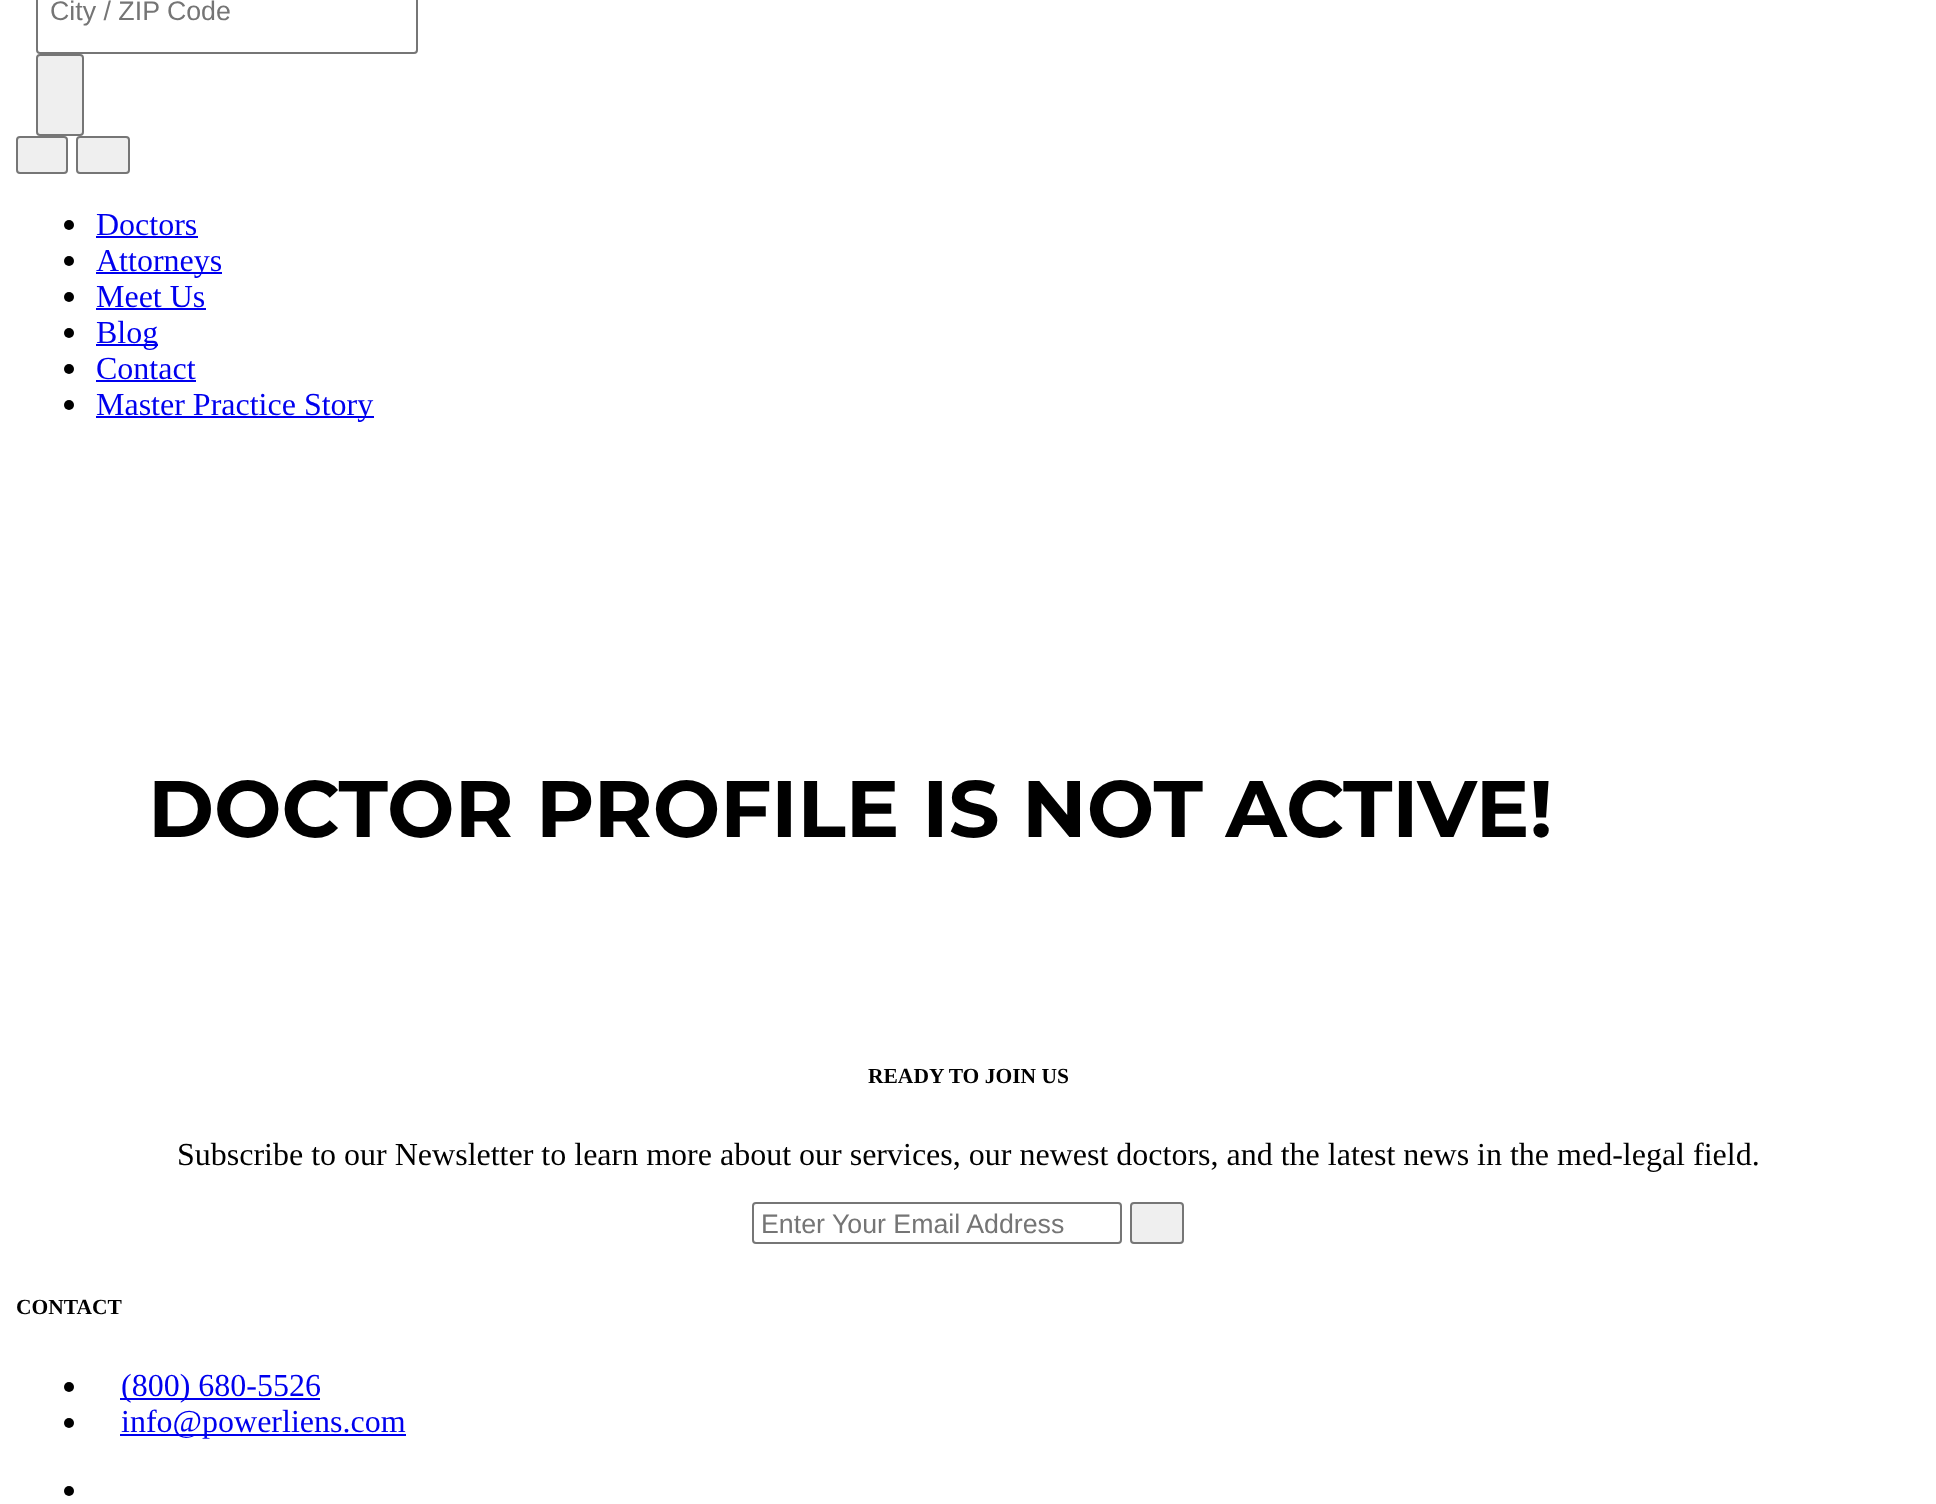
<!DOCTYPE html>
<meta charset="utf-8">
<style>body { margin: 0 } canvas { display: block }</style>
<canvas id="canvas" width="1936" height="1504"></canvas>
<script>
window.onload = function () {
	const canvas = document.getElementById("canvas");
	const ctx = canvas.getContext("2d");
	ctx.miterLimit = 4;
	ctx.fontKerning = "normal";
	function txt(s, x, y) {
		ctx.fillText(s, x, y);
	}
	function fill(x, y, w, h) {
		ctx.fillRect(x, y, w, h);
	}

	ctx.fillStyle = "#FFFFFF";
	fill(0, 0, 1936, 1504);
	ctx.beginPath();
	ctx.roundRect(37, -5, 380, 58, 3);
	ctx.strokeStyle = "#767676";
	ctx.lineWidth = 2;
	ctx.stroke();
	ctx.fillStyle = "#EFEFEF";
	ctx.beginPath();
	ctx.roundRect(37, 55, 46, 80, 3);
	ctx.fill();
	ctx.stroke();
	ctx.beginPath();
	ctx.roundRect(17, 137, 50, 36, 3);
	ctx.fill();
	ctx.stroke();
	ctx.beginPath();
	ctx.roundRect(77, 137, 52, 36, 3);
	ctx.fill();
	ctx.stroke();
	ctx.fillStyle = "#000000";
	ctx.beginPath();
	ctx.arc(69, 225, 5, 0, Math.PI * 2);
	ctx.fill();
	ctx.fillStyle = "#0000EE";
	fill(96, 236, 102, 2);
	ctx.fillStyle = "#000000";
	ctx.beginPath();
	ctx.arc(69, 261, 5, 0, Math.PI * 2);
	ctx.fill();
	ctx.fillStyle = "#0000EE";
	fill(96, 272, 126, 2);
	ctx.fillStyle = "#000000";
	ctx.beginPath();
	ctx.arc(69, 297, 5, 0, Math.PI * 2);
	ctx.fill();
	ctx.fillStyle = "#0000EE";
	fill(96, 308, 110, 2);
	ctx.fillStyle = "#000000";
	ctx.beginPath();
	ctx.arc(69, 333, 5, 0, Math.PI * 2);
	ctx.fill();
	ctx.fillStyle = "#0000EE";
	fill(96, 344, 62, 2);
	ctx.fillStyle = "#000000";
	ctx.beginPath();
	ctx.arc(69, 369, 5, 0, Math.PI * 2);
	ctx.fill();
	ctx.fillStyle = "#0000EE";
	fill(96, 380, 100, 2);
	ctx.fillStyle = "#000000";
	ctx.beginPath();
	ctx.arc(69, 405, 5, 0, Math.PI * 2);
	ctx.fill();
	ctx.fillStyle = "#0000EE";
	fill(96, 416, 278, 2);
	ctx.beginPath();
	ctx.roundRect(753, 1203, 368, 40, 3);
	ctx.stroke();
	ctx.fillStyle = "#EFEFEF";
	ctx.beginPath();
	ctx.roundRect(1131, 1203, 52, 40, 3);
	ctx.fill();
	ctx.stroke();
	ctx.fillStyle = "#000000";
	ctx.beginPath();
	ctx.arc(69, 1387, 5, 0, Math.PI * 2);
	ctx.fill();
	ctx.fillStyle = "#0000EE";
	fill(120, 1398, 200, 2);
	ctx.fillStyle = "#000000";
	ctx.beginPath();
	ctx.arc(69, 1423, 5, 0, Math.PI * 2);
	ctx.fill();
	ctx.fillStyle = "#0000EE";
	fill(120, 1434, 286, 2);
	ctx.fillStyle = "#000000";
	ctx.beginPath();
	ctx.arc(69, 1491, 5, 0, Math.PI * 2);
	ctx.fill();
	ctx.font = "26.75px Liberation Sans";
	ctx.fillStyle = "#757575";
	txt("City / ZIP Code", 50, 20);
	ctx.font = "32px Liberation Serif";
	ctx.fillStyle = "#0000EE";
	txt("Doctors", 96, 235);
	txt("Attorneys", 96, 271);
	txt("Meet Us", 96, 307);
	txt("Blog", 96, 343);
	txt("Contact", 96, 379);
	txt("Master Practice Story", 96, 415);
	ctx.font = "bold 80px Montserrat";
	ctx.fillStyle = "#000000";
	txt("DOCTOR PROFILE IS NOT ACTIVE!", 148, 837);
	ctx.font = "bold 21.5px Liberation Serif";
	txt("READY TO JOIN US", 868, 1083);
	ctx.font = "32px Liberation Serif";
	txt("Subscribe to our Newsletter to learn more about our services, our newest doctors, and the latest news in the med-legal field.", 177, 1165);
	ctx.font = "26.75px Liberation Sans";
	ctx.fillStyle = "#757575";
	txt("Enter Your Email Address", 761, 1233);
	ctx.font = "bold 21.5px Liberation Serif";
	ctx.fillStyle = "#000000";
	txt("CONTACT", 16, 1314);
	ctx.font = "32px Liberation Serif";
	ctx.fillStyle = "#0000EE";
	txt("(800) 680-5526", 121, 1396);
	txt("info@powerliens.com", 121, 1432);
};
</script>
